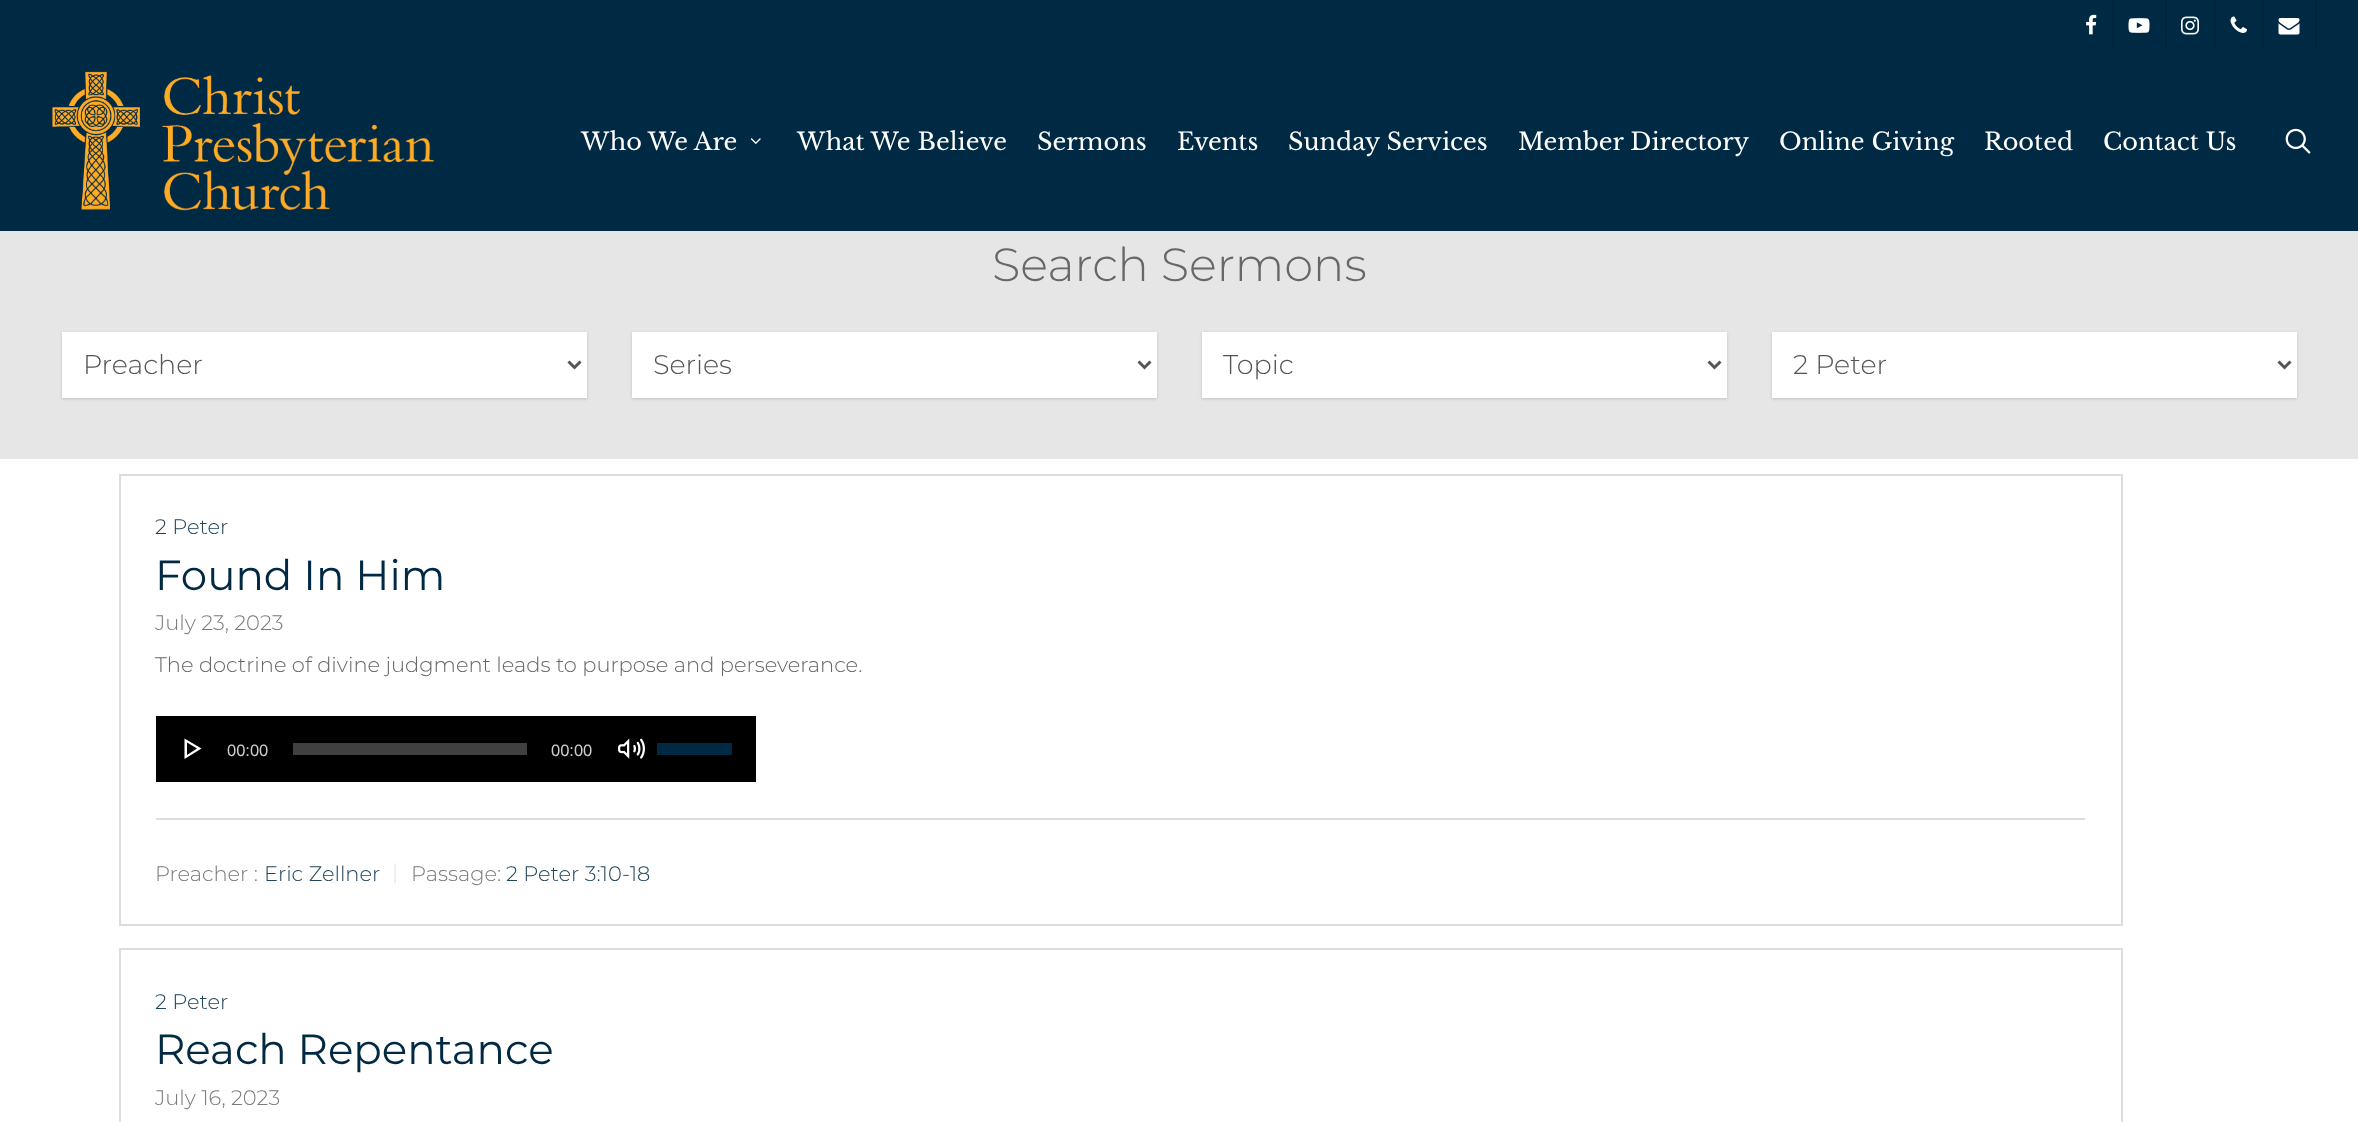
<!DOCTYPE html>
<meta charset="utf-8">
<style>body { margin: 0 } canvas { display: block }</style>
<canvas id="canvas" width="2358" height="1122"></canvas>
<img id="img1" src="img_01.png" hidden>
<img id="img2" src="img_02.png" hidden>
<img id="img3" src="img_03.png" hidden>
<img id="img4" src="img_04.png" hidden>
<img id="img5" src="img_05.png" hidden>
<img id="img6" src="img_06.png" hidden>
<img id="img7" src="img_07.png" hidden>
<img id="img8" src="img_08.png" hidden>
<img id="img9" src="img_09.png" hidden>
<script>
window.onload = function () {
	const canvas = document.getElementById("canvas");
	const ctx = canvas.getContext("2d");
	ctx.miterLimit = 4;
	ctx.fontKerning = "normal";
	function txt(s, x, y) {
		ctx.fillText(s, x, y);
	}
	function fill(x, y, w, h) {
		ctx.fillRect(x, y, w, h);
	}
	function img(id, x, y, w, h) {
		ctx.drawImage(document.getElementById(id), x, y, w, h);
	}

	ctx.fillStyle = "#FFFFFF";
	fill(0, 0, 2358, 1122);
	ctx.fillStyle = "#002943";
	fill(0, 0, 2358, 231);
	img("img1", 2086, 14, 11, 21);
	ctx.fillStyle = "#00253C";
	fill(2112, 0, 2, 48);
	img("img2", 2128, 18, 22, 15);
	fill(2165, 0, 2, 48);
	img("img3", 2181, 16, 18, 19);
	fill(2214, 0, 2, 48);
	img("img4", 2230, 16, 17, 17);
	fill(2315, 0, 2, 48);
	fill(2262, 0, 2, 48);
	img("img5", 2278, 18, 22, 17);
	img("img6", 52, 71, 382, 140);
	img("img7", 750, 138, 11, 6);
	img("img8", 2285, 128, 26, 26);
	ctx.fillStyle = "#E6E6E6";
	fill(0, 231, 2358, 228);
	ctx.fillStyle = "rgba(0, 0, 0, 0.16)";
	ctx.filter = "blur(1.5px)";
	ctx.beginPath();
	ctx.rect(62, 333, 525, 66);
	ctx.fill();
	ctx.filter = "none";
	ctx.fillStyle = "#FFFFFF";
	fill(62, 332, 525, 66);
	ctx.beginPath();
	ctx.moveTo(568.5, 361.5);
	ctx.lineTo(574.5, 367.5);
	ctx.lineTo(580.5, 361.5);
	ctx.strokeStyle = "#555555";
	ctx.lineWidth = 3;
	ctx.stroke();
	ctx.fillStyle = "rgba(0, 0, 0, 0.16)";
	ctx.filter = "blur(1.5px)";
	ctx.beginPath();
	ctx.rect(632, 333, 525, 66);
	ctx.fill();
	ctx.filter = "none";
	ctx.fillStyle = "#FFFFFF";
	fill(632, 332, 525, 66);
	ctx.beginPath();
	ctx.moveTo(1138.5, 361.5);
	ctx.lineTo(1144.5, 367.5);
	ctx.lineTo(1150.5, 361.5);
	ctx.stroke();
	ctx.fillStyle = "rgba(0, 0, 0, 0.16)";
	ctx.filter = "blur(1.5px)";
	ctx.beginPath();
	ctx.rect(1202, 333, 525, 66);
	ctx.fill();
	ctx.filter = "none";
	ctx.fillStyle = "#FFFFFF";
	fill(1202, 332, 525, 66);
	ctx.beginPath();
	ctx.moveTo(1708.5, 361.5);
	ctx.lineTo(1714.5, 367.5);
	ctx.lineTo(1720.5, 361.5);
	ctx.stroke();
	ctx.fillStyle = "rgba(0, 0, 0, 0.16)";
	ctx.filter = "blur(1.5px)";
	ctx.beginPath();
	ctx.rect(1772, 333, 525, 66);
	ctx.fill();
	ctx.filter = "none";
	ctx.fillStyle = "#FFFFFF";
	fill(1772, 332, 525, 66);
	ctx.beginPath();
	ctx.moveTo(2278.5, 361.5);
	ctx.lineTo(2284.5, 367.5);
	ctx.lineTo(2290.5, 361.5);
	ctx.stroke();
	ctx.strokeStyle = "#DDDDDD";
	ctx.lineWidth = 2;
	ctx.strokeRect(120, 475, 2002, 450);
	ctx.fillStyle = "#000000";
	fill(156, 716, 600, 66);
	ctx.fillStyle = "#FFFFFF";
	ctx.beginPath();
	ctx.moveTo(184.5, 759);
	ctx.lineTo(184.5, 738.5);
	ctx.lineTo(201.5, 748.5);
	ctx.closePath();
	ctx.moveTo(197, 748.5);
	ctx.lineTo(187, 742.5);
	ctx.lineTo(187, 755);
	ctx.closePath();
	ctx.fill();
	ctx.fillStyle = "#404040";
	fill(293, 743, 234, 12);
	img("img9", 618, 738, 27, 21);
	ctx.fillStyle = "#002943";
	fill(657, 743, 75, 12);
	ctx.fillStyle = "#DDDDDD";
	fill(156, 818, 1929, 2);
	ctx.strokeRect(120, 949, 2002, 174);
	ctx.font = "24px Libre Baskerville";
	ctx.fillStyle = "#FFFFFF";
	txt("Who We Are", 581, 150);
	txt("What We Believe", 797, 150);
	txt("Sermons", 1037, 150);
	txt("Events", 1177, 150);
	txt("Sunday Services", 1288, 150);
	txt("Member Directory", 1518, 150);
	txt("Online Giving", 1779, 150);
	txt("Rooted", 1984, 150);
	txt("Contact Us", 2103, 150);
	ctx.font = "300 46.5px Montserrat";
	ctx.fillStyle = "#676767";
	txt("Search Sermons", 992, 281);
	ctx.font = "300 27px Montserrat";
	ctx.fillStyle = "#555555";
	txt("Preacher", 83, 374);
	txt("Series", 653, 374);
	txt("Topic", 1223, 374);
	txt("2 Peter", 1793, 374);
	ctx.font = "300 21px Montserrat";
	ctx.fillStyle = "#21455B";
	txt("2 Peter", 155, 534);
	ctx.font = "42px Montserrat";
	ctx.fillStyle = "#002943";
	txt("Found In Him", 155, 590);
	ctx.font = "300 21px Montserrat";
	ctx.fillStyle = "#7B7B7B";
	txt("July 23, 2023", 155, 630);
	ctx.fillStyle = "#676767";
	txt("The doctrine of divine judgment leads to purpose and perseverance.", 155, 672);
	ctx.font = "16.5px Liberation Sans";
	ctx.fillStyle = "#CCCCCC";
	txt("00:00", 227, 756);
	txt("00:00", 551, 756);
	ctx.font = "300 21px Montserrat";
	ctx.fillStyle = "#7B7B7B";
	txt("Preacher :", 155, 881);
	ctx.fillStyle = "#21455B";
	txt("Eric Zellner", 264, 881);
	ctx.fillStyle = "#E1E1E1";
	txt("|", 392, 879);
	ctx.fillStyle = "#7B7B7B";
	txt("Passage:", 411, 881);
	ctx.fillStyle = "#21455B";
	txt("2 Peter 3:10-18", 506, 881);
	txt("2 Peter", 155, 1009);
	ctx.font = "42px Montserrat";
	ctx.fillStyle = "#002943";
	txt("Reach Repentance", 155, 1064);
	ctx.font = "300 21px Montserrat";
	ctx.fillStyle = "#7B7B7B";
	txt("July 16, 2023", 155, 1105);
};
</script>
